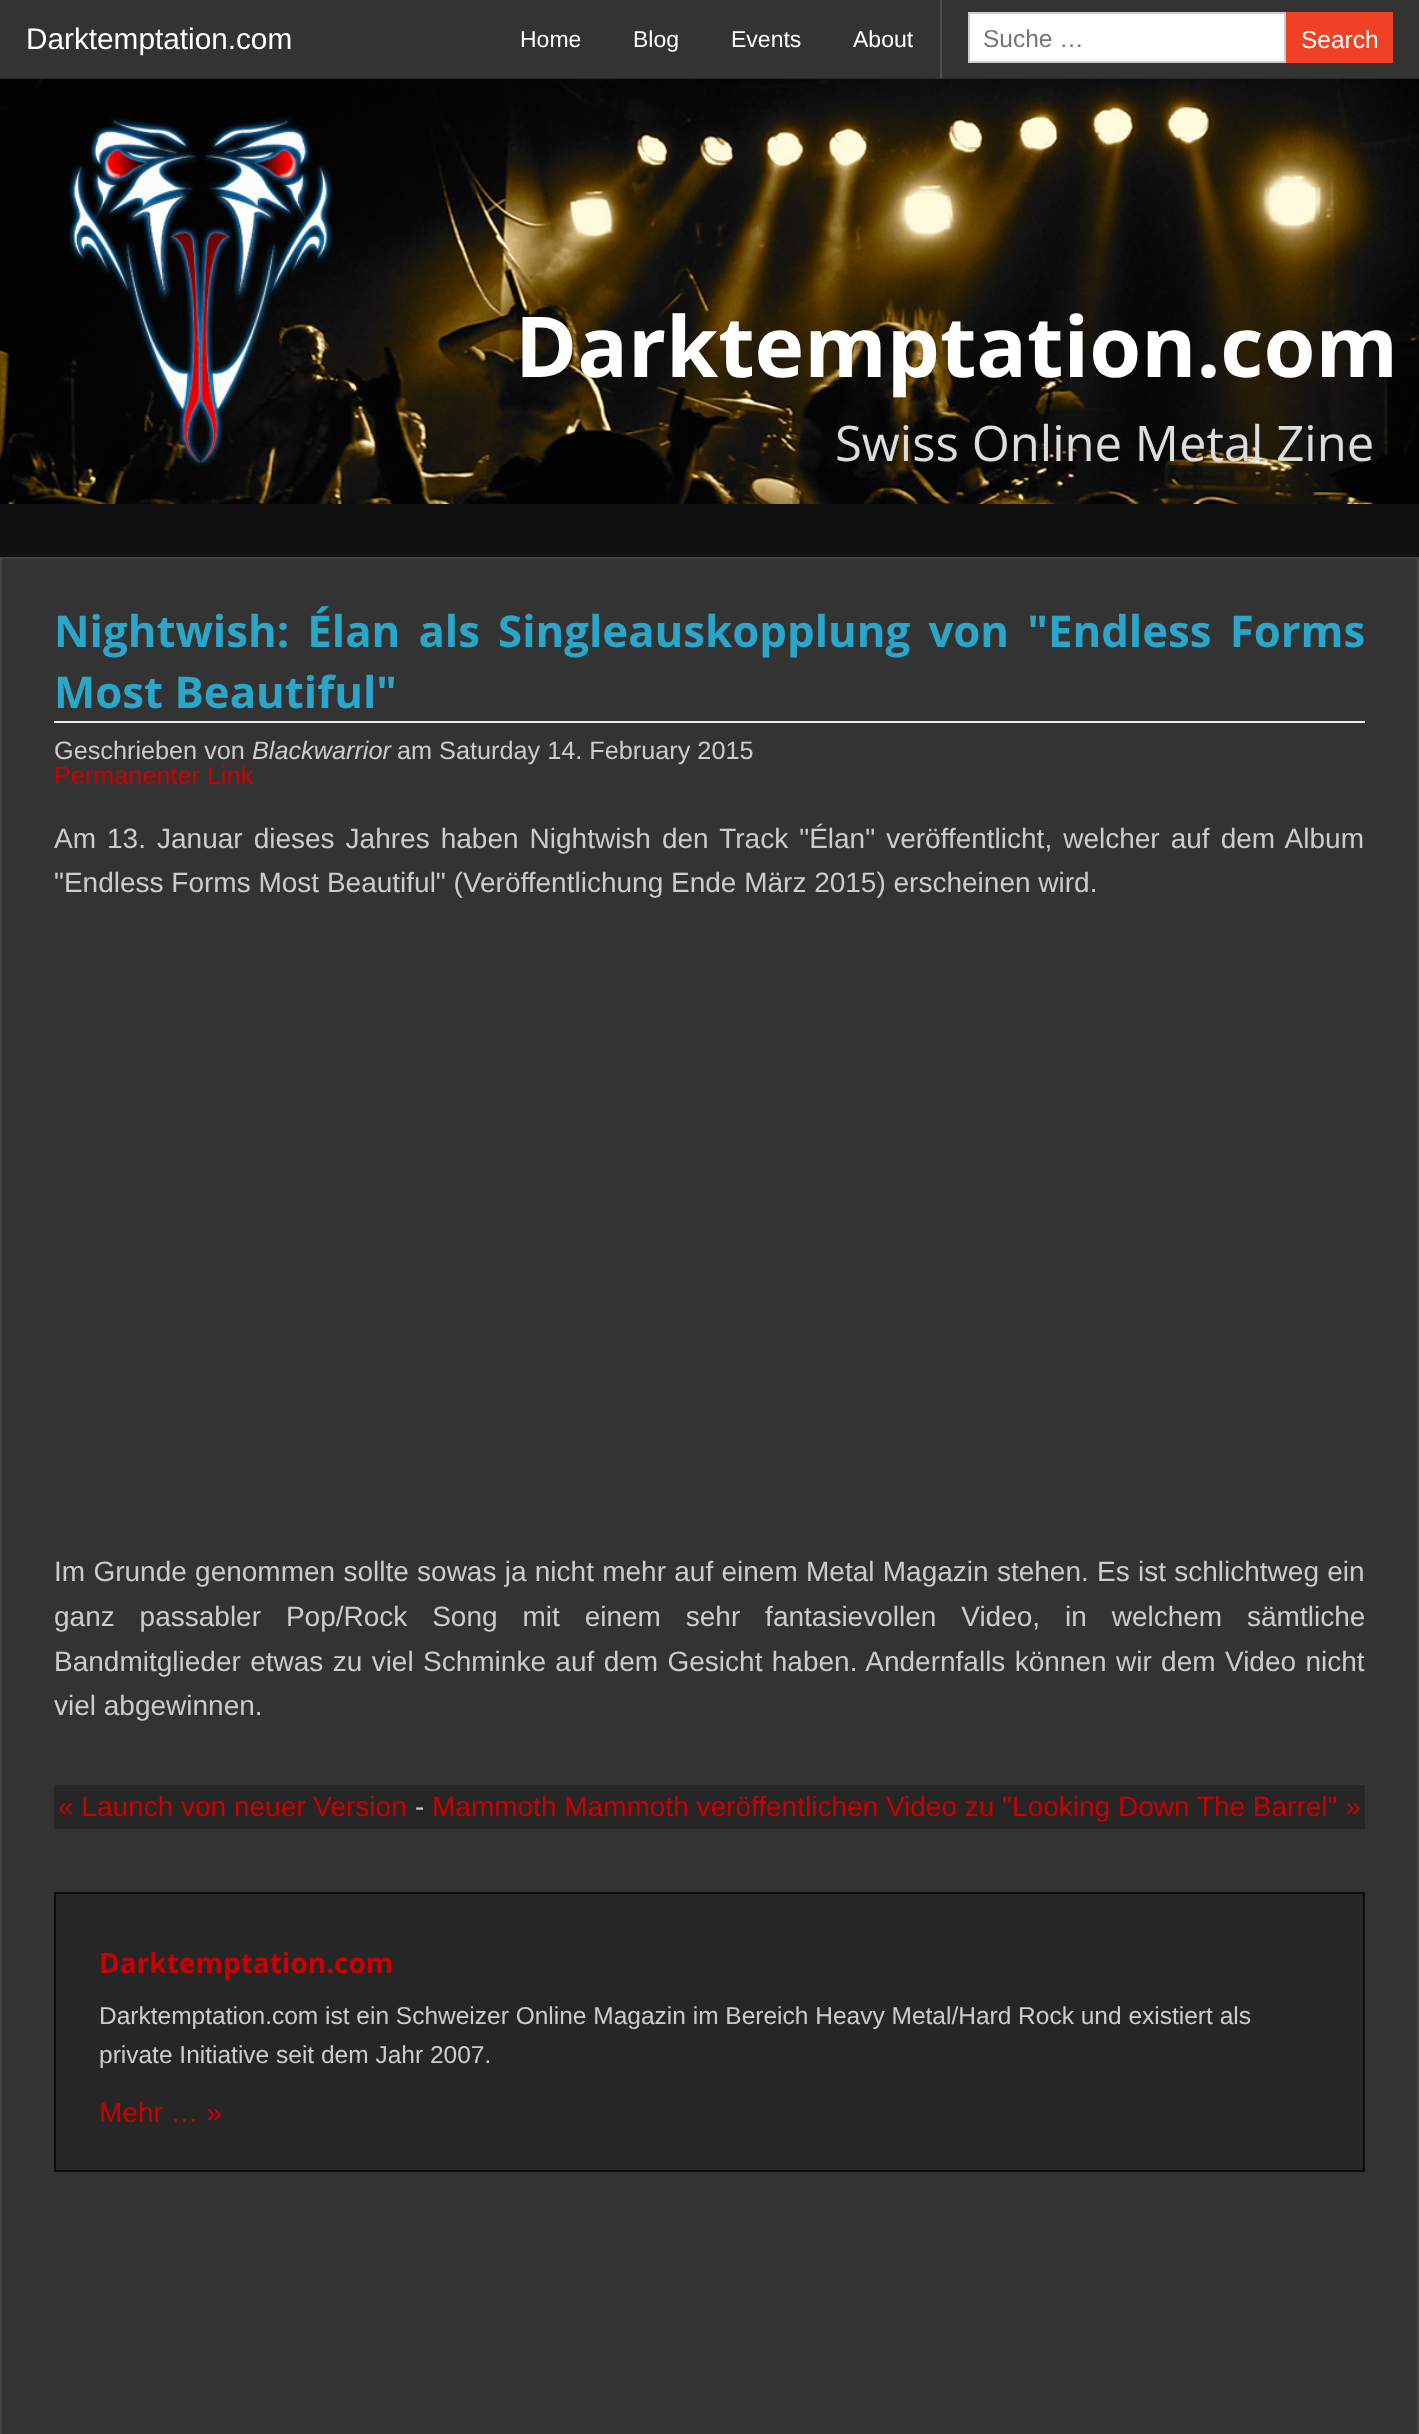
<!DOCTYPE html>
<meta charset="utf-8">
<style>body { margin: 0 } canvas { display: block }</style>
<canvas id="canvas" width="1419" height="2434"></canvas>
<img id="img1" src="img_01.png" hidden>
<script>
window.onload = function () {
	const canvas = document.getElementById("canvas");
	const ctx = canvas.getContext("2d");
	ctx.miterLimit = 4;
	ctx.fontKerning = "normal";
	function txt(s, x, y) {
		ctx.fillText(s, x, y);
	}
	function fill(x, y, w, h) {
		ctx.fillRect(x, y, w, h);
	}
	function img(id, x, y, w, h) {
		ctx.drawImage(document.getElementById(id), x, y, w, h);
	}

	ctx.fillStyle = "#111111";
	fill(0, 0, 1419, 2434);
	ctx.fillStyle = "#333333";
	fill(0, 0, 1419, 79);
	ctx.fillStyle = "#4E4E4E";
	fill(940, 0, 2, 79);
	ctx.fillStyle = "#FFFFFF";
	ctx.beginPath();
	ctx.rect(969, 13, 316, 49);
	ctx.fill();
	ctx.strokeStyle = "#CCCCCC";
	ctx.lineWidth = 2;
	ctx.stroke();
	ctx.fillStyle = "#F04124";
	fill(1286, 12, 107, 51);
	img("img1", 0, 78, 1419, 426);
	ctx.fillStyle = "#333333";
	ctx.beginPath();
	ctx.rect(1, 558, 1417, 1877);
	ctx.fill();
	ctx.strokeStyle = "#444444";
	ctx.stroke();
	ctx.fillStyle = "#EDEDED";
	fill(54, 721, 1311, 2);
	ctx.fillStyle = "#262626";
	fill(54, 1785, 1311, 44);
	ctx.beginPath();
	ctx.rect(55, 1893, 1309, 278);
	ctx.fill();
	ctx.strokeStyle = "#0D0D0D";
	ctx.stroke();
	ctx.font = "29.75px Liberation Sans";
	ctx.fillStyle = "#FFFFFF";
	txt("Darktemptation.com", 26, 49);
	ctx.font = "23px Liberation Sans";
	txt("Home", 520, 47);
	txt("Blog", 633, 47);
	txt("Events", 731, 47);
	txt("About", 853, 47);
	ctx.font = "24.5px Liberation Sans";
	ctx.fillStyle = "#757575";
	txt("Suche …", 983, 47);
	ctx.fillStyle = "#FFFFFF";
	txt("Search", 1301, 48);
	ctx.font = "bold 84px Open Sans";
	txt("Darktemptation.com", 515, 377);
	ctx.font = "49px Open Sans";
	ctx.fillStyle = "#DDDDDD";
	txt("Swiss Online Metal Zine", 835, 461);
	ctx.wordSpacing = "6.75px";
	ctx.font = "bold 43.75px Open Sans";
	ctx.fillStyle = "#2BA6CB";
	txt("Nightwish: Élan als Singleauskopplung von \"Endless Forms", 54, 647);
	ctx.wordSpacing = "0px";
	txt("Most Beautiful\"", 54, 708);
	ctx.font = "25.25px Liberation Sans";
	ctx.fillStyle = "#CCCCCC";
	txt("Geschrieben von", 54, 759);
	ctx.font = "italic 25.25px Liberation Sans";
	txt("Blackwarrior", 252, 759);
	ctx.font = "25.25px Liberation Sans";
	txt("am Saturday 14. February 2015", 397, 759);
	ctx.fillStyle = "#CC0000";
	txt("Permanenter Link", 54, 784);
	ctx.wordSpacing = "3.25px";
	ctx.font = "28px Liberation Sans";
	ctx.fillStyle = "#CCCCCC";
	txt("Am 13. Januar dieses Jahres haben Nightwish den Track \"Élan\" veröffentlicht, welcher auf dem Album", 54, 848);
	ctx.wordSpacing = "0px";
	txt("\"Endless Forms Most Beautiful\" (Veröffentlichung Ende März 2015) erscheinen wird.", 54, 892);
	ctx.wordSpacing = "0.5px";
	txt("Im Grunde genommen sollte sowas ja nicht mehr auf einem Metal Magazin stehen. Es ist schlichtweg ein", 54, 1581);
	ctx.wordSpacing = "17.1px";
	txt("ganz passabler Pop/Rock Song mit einem sehr fantasievollen Video, in welchem sämtliche", 54, 1626);
	ctx.wordSpacing = "1.6px";
	txt("Bandmitglieder etwas zu viel Schminke auf dem Gesicht haben. Andernfalls können wir dem Video nicht", 54, 1671);
	ctx.wordSpacing = "0px";
	txt("viel abgewinnen.", 54, 1715);
	ctx.fillStyle = "#CC0000";
	txt("« Launch von neuer Version", 58, 1816);
	ctx.fillStyle = "#CCCCCC";
	txt("-", 415, 1816);
	ctx.fillStyle = "#CC0000";
	txt("Mammoth Mammoth veröffentlichen Video zu \"Looking Down The Barrel\" »", 432, 1816);
	ctx.font = "bold 28px Open Sans";
	txt("Darktemptation.com", 99, 1973);
	ctx.font = "24.5px Liberation Sans";
	ctx.fillStyle = "#CCCCCC";
	txt("Darktemptation.com ist ein Schweizer Online Magazin im Bereich Heavy Metal/Hard Rock und existiert als", 99, 2024);
	txt("private Initiative seit dem Jahr 2007.", 99, 2063);
	ctx.font = "28px Liberation Sans";
	ctx.fillStyle = "#CC0000";
	txt("Mehr … »", 99, 2122);
};
</script>
